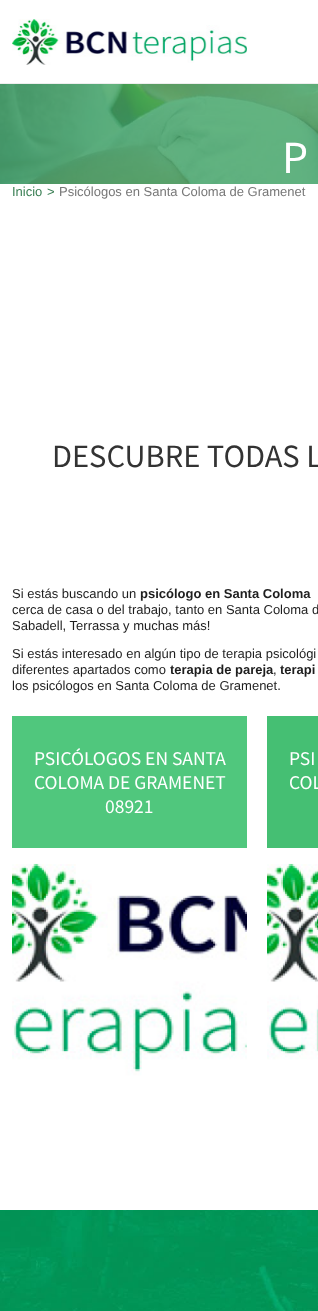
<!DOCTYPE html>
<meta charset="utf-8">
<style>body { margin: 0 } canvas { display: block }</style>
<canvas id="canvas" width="318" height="1311"></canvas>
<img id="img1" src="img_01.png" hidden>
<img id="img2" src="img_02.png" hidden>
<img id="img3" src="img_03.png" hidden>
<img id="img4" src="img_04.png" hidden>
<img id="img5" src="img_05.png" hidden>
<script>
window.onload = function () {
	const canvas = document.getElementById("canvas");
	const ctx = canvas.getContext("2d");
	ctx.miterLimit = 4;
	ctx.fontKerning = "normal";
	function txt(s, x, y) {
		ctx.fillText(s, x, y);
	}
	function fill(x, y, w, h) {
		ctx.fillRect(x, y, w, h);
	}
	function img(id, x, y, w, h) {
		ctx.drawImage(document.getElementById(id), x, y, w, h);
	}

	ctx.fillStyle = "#FFFFFF";
	fill(0, 0, 318, 1311);
	ctx.fillStyle = "#EEEEEE";
	fill(0, 83, 318, 1);
	img("img1", 12, 19, 235, 46);
	img("img2", 0, 84, 318, 100);
	ctx.fillStyle = "#50C77D";
	fill(12, 716, 235, 132);
	img("img3", 12, 848, 235, 235);
	ctx.fillStyle = "#45BF73";
	fill(267, 716, 51, 132);
	img("img4", 267, 848, 51, 235);
	img("img5", 0, 1210, 318, 101);
	ctx.font = "46px Source Sans Pro";
	ctx.fillStyle = "#FFFFFF";
	txt("P", 282, 173);
	ctx.font = "13px Liberation Sans";
	ctx.fillStyle = "#3A7F54";
	txt("Inicio", 12, 196);
	txt(">", 47, 196);
	ctx.fillStyle = "#777777";
	txt("Psicólogos en Santa Coloma de Gramenet", 59, 196);
	ctx.font = "32.5px Source Sans Pro";
	ctx.fillStyle = "#333333";
	txt("DESCUBRE TODAS L", 52, 467);
	ctx.font = "13px Liberation Sans";
	ctx.fillStyle = "#1E1E1E";
	txt("Si estás buscando un", 12, 598);
	ctx.font = "bold 13px Liberation Sans";
	txt("psicólogo en Santa Coloma", 140, 598);
	ctx.font = "13px Liberation Sans";
	txt("cerca de casa o del trabajo, tanto en Santa Coloma d", 12, 614);
	txt("Sabadell, Terrassa y muchas más!", 12, 630);
	txt("Si estás interesado en algún tipo de terapia psicológi", 12, 658);
	txt("diferentes apartados como", 12, 674);
	ctx.font = "bold 13px Liberation Sans";
	txt("terapia de pareja", 170, 674);
	ctx.font = "13px Liberation Sans";
	txt(",", 273, 674);
	ctx.font = "bold 13px Liberation Sans";
	txt("terapi", 280, 674);
	ctx.font = "13px Liberation Sans";
	txt("los psicólogos en Santa Coloma de Gramenet.", 12, 690);
	ctx.font = "19.5px Source Sans Pro";
	ctx.fillStyle = "#FFFFFF";
	txt("PSICÓLOGOS EN SANTA", 34, 765);
	txt("COLOMA DE GRAMENET", 34, 789);
	txt("08921", 105, 813);
	txt("PSI", 289, 765);
	txt("COL", 289, 789);
};
</script>
